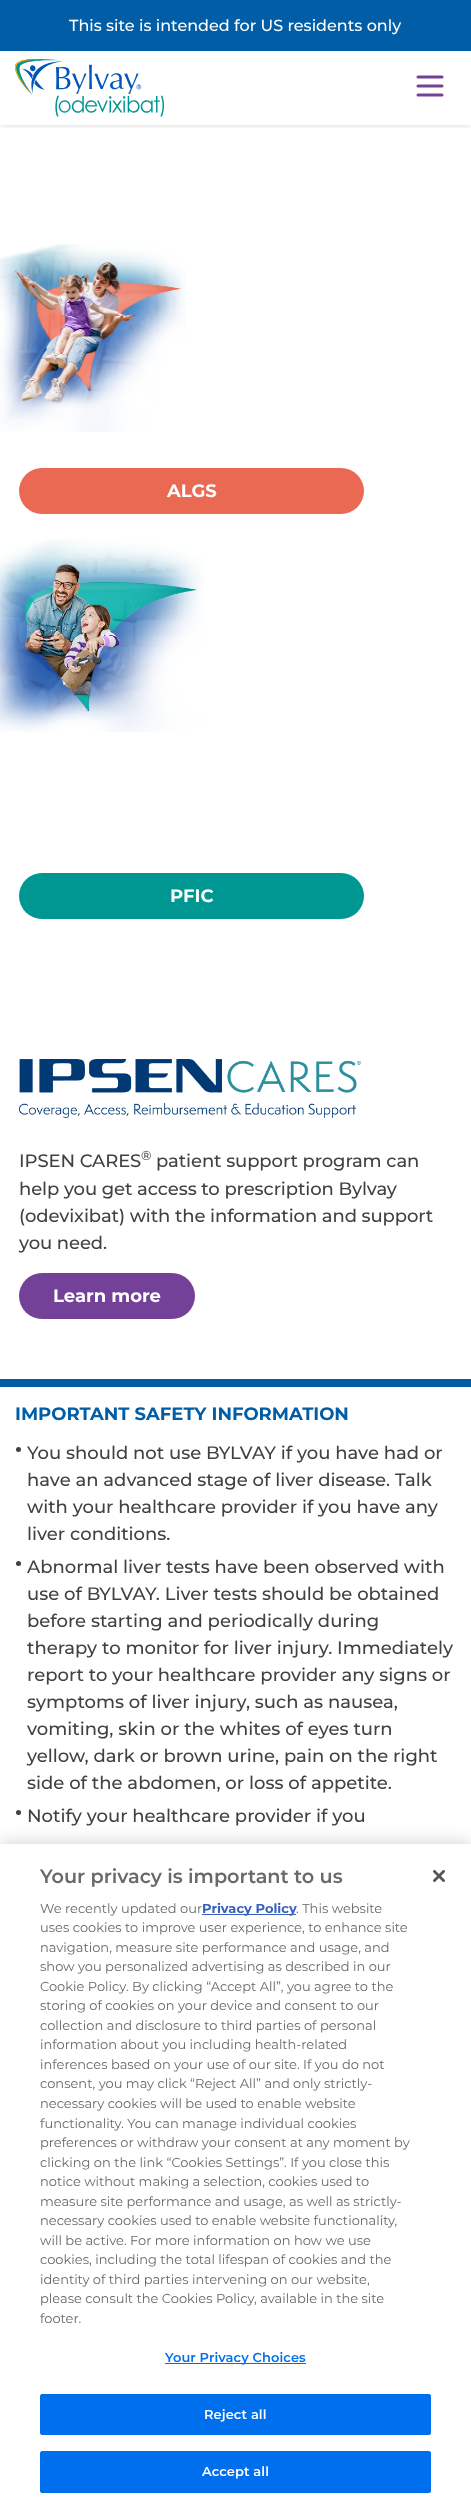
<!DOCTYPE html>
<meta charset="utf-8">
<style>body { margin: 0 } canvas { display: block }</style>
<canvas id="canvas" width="471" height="2509"></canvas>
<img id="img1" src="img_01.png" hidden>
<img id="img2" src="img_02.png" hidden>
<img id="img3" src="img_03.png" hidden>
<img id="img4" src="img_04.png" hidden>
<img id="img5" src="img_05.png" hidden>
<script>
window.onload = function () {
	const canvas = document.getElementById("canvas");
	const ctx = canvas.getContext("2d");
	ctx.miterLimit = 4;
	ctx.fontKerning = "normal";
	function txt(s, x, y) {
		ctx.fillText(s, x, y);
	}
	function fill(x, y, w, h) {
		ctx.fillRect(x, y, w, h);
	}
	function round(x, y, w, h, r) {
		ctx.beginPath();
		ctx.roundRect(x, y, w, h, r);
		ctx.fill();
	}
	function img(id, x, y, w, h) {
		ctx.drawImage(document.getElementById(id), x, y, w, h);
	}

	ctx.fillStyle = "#FFFFFF";
	fill(0, 0, 471, 2509);
	ctx.save();
	ctx.beginPath();
	ctx.rect(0, 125, 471, 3);
	ctx.clip();
	ctx.fillStyle = "rgba(0, 0, 0, 0.16)";
	ctx.filter = "blur(3px)";
	ctx.beginPath();
	ctx.rect(0, 51, 471, 74);
	ctx.fill();
	ctx.filter = "none";
	ctx.restore();
	ctx.fillStyle = "#005DA6";
	fill(0, 0, 471, 51);
	img("img1", 15, 59, 149, 58);
	ctx.beginPath();
	ctx.moveTo(418, 77);
	ctx.lineTo(442, 77);
	ctx.moveTo(418, 86);
	ctx.lineTo(442, 86);
	ctx.moveTo(418, 95);
	ctx.lineTo(442, 95);
	ctx.strokeStyle = "#744199";
	ctx.lineWidth = 3;
	ctx.lineCap = "round";
	ctx.stroke();
	img("img2", 0, 244, 186, 188);
	ctx.fillStyle = "#EA6952";
	round(19, 468, 345, 46, 23);
	img("img3", 0, 539, 204, 193);
	ctx.fillStyle = "#009793";
	round(19, 873, 345, 46, 23);
	img("img4", 19, 1059, 342, 59);
	ctx.fillStyle = "#744199";
	round(19, 1273, 176, 46, 23);
	ctx.fillStyle = "#005DA6";
	fill(0, 1379, 471, 8);
	ctx.fillStyle = "#414042";
	ctx.beginPath();
	ctx.arc(18.5, 1449.5, 2.5, 0, Math.PI * 2);
	ctx.fill();
	ctx.beginPath();
	ctx.arc(18.5, 1563.5, 2.5, 0, Math.PI * 2);
	ctx.fill();
	ctx.beginPath();
	ctx.arc(18.5, 1812.5, 2.5, 0, Math.PI * 2);
	ctx.fill();
	ctx.fillStyle = "rgba(0, 0, 0, 0.2)";
	ctx.filter = "blur(9px)";
	ctx.beginPath();
	ctx.rect(0, 1844, 471, 665);
	ctx.fill();
	ctx.filter = "none";
	ctx.fillStyle = "#FFFFFF";
	fill(0, 1844, 471, 665);
	ctx.fillStyle = "#3860BE";
	fill(202, 1914, 94, 1);
	ctx.fillStyle = "#006FEE";
	fill(165, 2363, 141, 1);
	ctx.beginPath();
	ctx.roundRect(40.5, 2394.5, 390, 40, 1.5);
	ctx.fill();
	ctx.strokeStyle = "#006FEE";
	ctx.lineWidth = 1;
	ctx.stroke();
	ctx.beginPath();
	ctx.roundRect(40.5, 2451.5, 390, 41, 1.5);
	ctx.fill();
	ctx.stroke();
	img("img5", 433, 1870, 12, 12);
	ctx.font = "500 16px Montserrat";
	ctx.fillStyle = "#FFFFFF";
	txt("This site is intended for US residents only", 69, 31);
	ctx.font = "bold 18px Montserrat";
	txt("ALGS", 167, 497);
	txt("PFIC", 170, 902);
	ctx.letterSpacing = "-0.1px";
	ctx.font = "500 18px Montserrat";
	ctx.fillStyle = "#414042";
	txt("IPSEN CARES", 19, 1167);
	ctx.font = "500 13px Montserrat";
	txt("®", 141, 1160);
	ctx.font = "500 18px Montserrat";
	txt("patient support program can", 156, 1167);
	txt("help you get access to prescription Bylvay", 19, 1195);
	txt("(odevixibat) with the information and support", 19, 1222);
	txt("you need.", 19, 1249);
	ctx.letterSpacing = "0px";
	ctx.font = "bold 18px Montserrat";
	ctx.fillStyle = "#FFFFFF";
	txt("Learn more", 53, 1302);
	ctx.fillStyle = "#005DA6";
	txt("IMPORTANT SAFETY INFORMATION", 15, 1420);
	ctx.font = "500 18px Montserrat";
	ctx.fillStyle = "#414042";
	txt("You should not use BYLVAY if you have had or", 27, 1459);
	txt("have an advanced stage of liver disease. Talk", 27, 1486);
	txt("with your healthcare provider if you have any", 27, 1513);
	txt("liver conditions.", 27, 1540);
	txt("Abnormal liver tests have been observed with", 27, 1573);
	txt("use of BYLVAY. Liver tests should be obtained", 27, 1600);
	txt("before starting and periodically during", 27, 1627);
	txt("therapy to monitor for liver injury. Immediately", 27, 1654);
	txt("report to your healthcare provider any signs or", 27, 1681);
	txt("symptoms of liver injury, such as nausea,", 27, 1708);
	txt("vomiting, skin or the whites of eyes turn", 27, 1735);
	txt("yellow, dark or brown urine, pain on the right", 27, 1762);
	txt("side of the abdomen, or loss of appetite.", 27, 1789);
	txt("Notify your healthcare provider if you", 27, 1822);
	ctx.font = "600 19.25px Montserrat";
	ctx.fillStyle = "#696969";
	txt("Your privacy is important to us", 40, 1883);
	ctx.font = "13px Montserrat";
	txt("We recently updated our", 40, 1913);
	ctx.font = "bold 13px Montserrat";
	ctx.fillStyle = "#3860BE";
	txt("Privacy Policy", 202, 1913);
	ctx.font = "13px Montserrat";
	ctx.fillStyle = "#696969";
	txt(". This website", 296, 1913);
	txt("uses cookies to improve user experience, to enhance site", 40, 1932);
	txt("navigation, measure site performance and usage, and", 40, 1952);
	txt("show you personalized advertising as described in our", 40, 1971);
	txt("Cookie Policy. By clicking “Accept All”, you agree to the", 40, 1991);
	txt("storing of cookies on your device and consent to our", 40, 2010);
	txt("collection and disclosure to third parties of personal", 40, 2030);
	txt("information about you including health-related", 40, 2049);
	txt("inferences based on your use of our site. If you do not", 40, 2069);
	txt("consent, you may click “Reject All” and only strictly-", 40, 2088);
	txt("necessary cookies will be used to enable website", 40, 2108);
	txt("functionality. You can manage individual cookies", 40, 2128);
	txt("preferences or withdraw your consent at any moment by", 40, 2147);
	txt("clicking on the link “Cookies Settings”. If you close this", 40, 2167);
	txt("notice without making a selection, cookies used to", 40, 2186);
	txt("measure site performance and usage, as well as strictly-", 40, 2206);
	txt("necessary cookies used to enable website functionality,", 40, 2225);
	txt("will be active. For more information on how we use", 40, 2245);
	txt("cookies, including the total lifespan of cookies and the", 40, 2264);
	txt("identity of third parties intervening on our website,", 40, 2284);
	txt("please consult the Cookies Policy, available in the site", 40, 2303);
	txt("footer.", 40, 2323);
	ctx.letterSpacing = "0.1px";
	ctx.font = "600 13px Montserrat";
	ctx.fillStyle = "#006FEE";
	txt("Your Privacy Choices", 165, 2362);
	ctx.fillStyle = "#FFFFFF";
	txt("Reject all", 204, 2419);
	txt("Accept all", 202, 2476);
};
</script>
